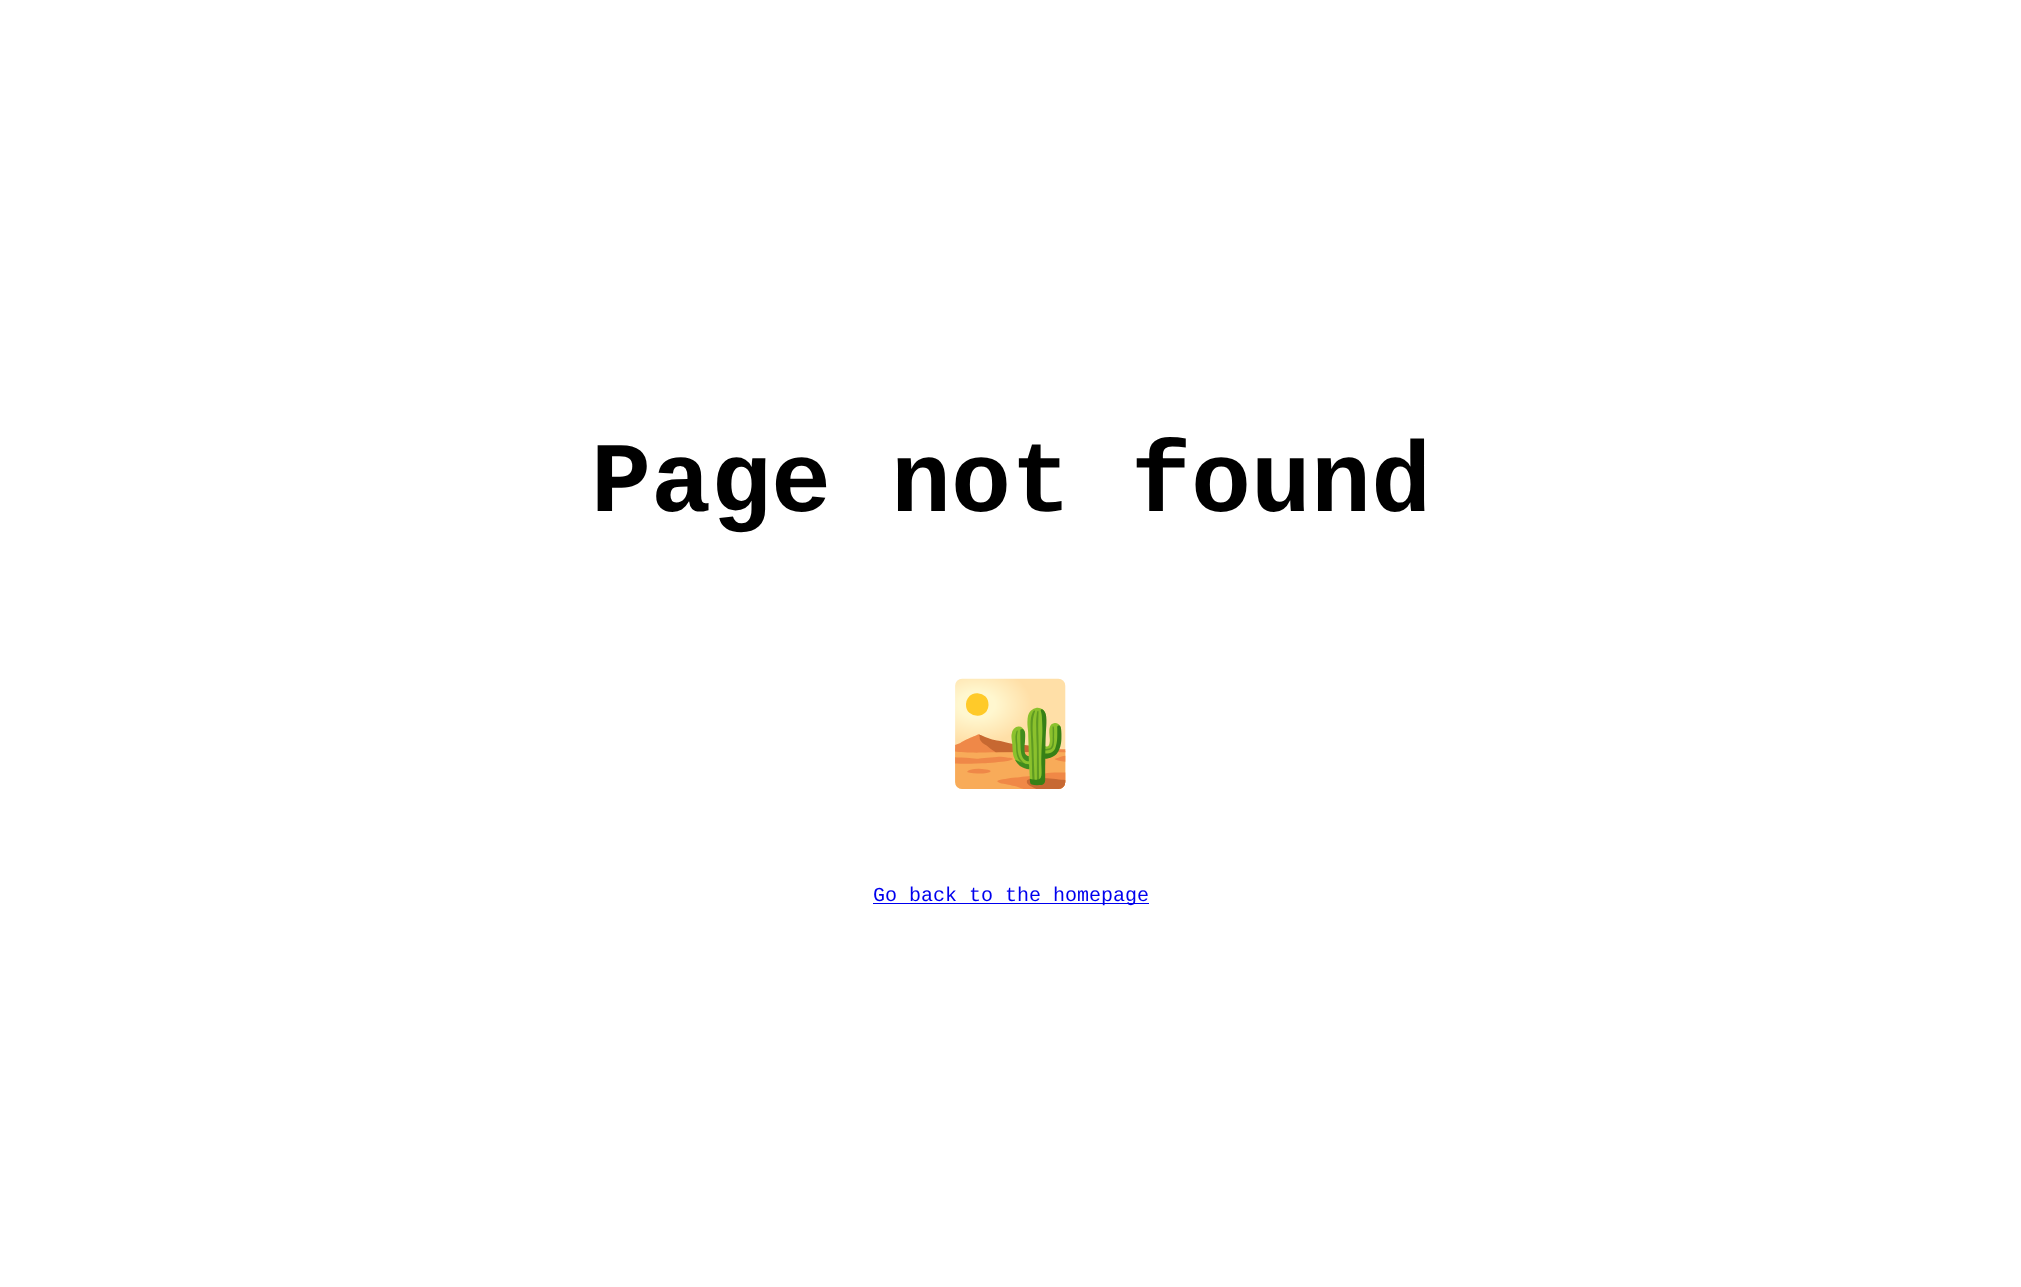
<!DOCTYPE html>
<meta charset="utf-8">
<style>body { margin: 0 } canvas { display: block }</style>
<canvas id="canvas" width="2021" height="1287"></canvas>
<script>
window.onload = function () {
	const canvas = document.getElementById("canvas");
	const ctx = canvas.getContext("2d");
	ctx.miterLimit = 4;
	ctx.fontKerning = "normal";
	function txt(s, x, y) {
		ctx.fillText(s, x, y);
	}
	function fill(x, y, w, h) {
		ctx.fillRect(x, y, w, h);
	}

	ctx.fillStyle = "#FFFFFF";
	fill(0, 0, 2021, 1287);
	ctx.fillStyle = "#0000EE";
	fill(873, 903, 276, 1);
	ctx.font = "bold 100px Liberation Mono";
	ctx.fillStyle = "#000000";
	txt("Page not found", 591, 511);
	ctx.font = "bold 100px Noto Color Emoji";
	txt("🏜️", 948, 768);
	ctx.font = "20px Liberation Mono";
	ctx.fillStyle = "#0000EE";
	txt("Go back to the homepage", 873, 901);
};
</script>
